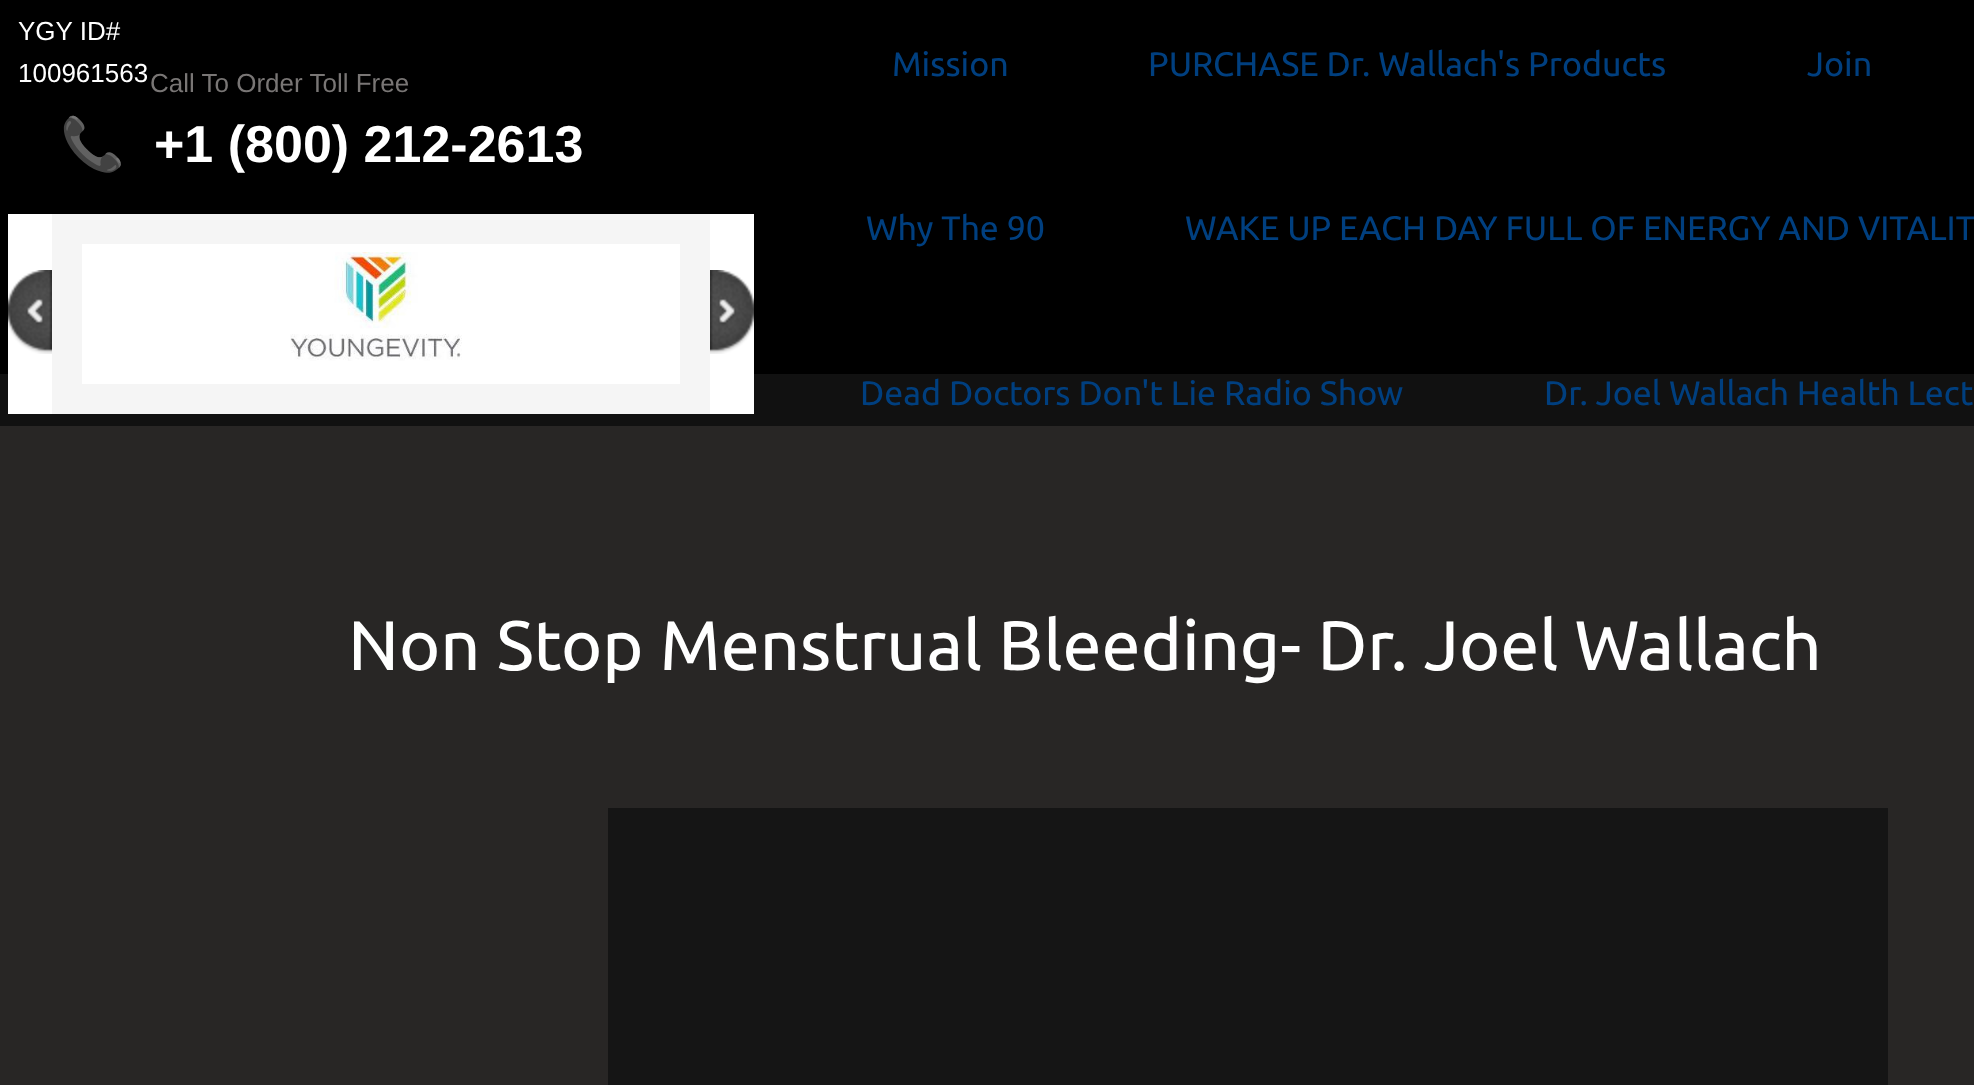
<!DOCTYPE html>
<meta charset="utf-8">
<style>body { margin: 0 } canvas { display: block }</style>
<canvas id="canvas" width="1974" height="1085"></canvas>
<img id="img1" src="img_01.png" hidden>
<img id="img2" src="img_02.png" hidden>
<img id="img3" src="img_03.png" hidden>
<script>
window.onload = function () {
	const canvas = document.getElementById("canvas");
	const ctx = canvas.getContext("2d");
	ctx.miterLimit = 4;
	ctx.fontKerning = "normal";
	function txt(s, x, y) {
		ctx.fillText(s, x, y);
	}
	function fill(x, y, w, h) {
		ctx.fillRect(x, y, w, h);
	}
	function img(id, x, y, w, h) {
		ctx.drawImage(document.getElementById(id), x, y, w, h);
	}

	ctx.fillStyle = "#000000";
	fill(0, 0, 1974, 1085);
	ctx.fillStyle = "#282625";
	fill(0, 426, 1974, 659);
	ctx.fillStyle = "#111111";
	fill(0, 374, 1974, 52);
	ctx.fillStyle = "#FFFFFF";
	fill(8, 214, 746, 200);
	img("img1", 8, 270, 44, 84);
	ctx.strokeStyle = "#F5F5F5";
	ctx.lineWidth = 30;
	ctx.strokeRect(67, 229, 628, 170);
	img("img2", 290, 252, 172, 109);
	img("img3", 710, 270, 44, 84);
	ctx.fillStyle = "#151515";
	fill(608, 808, 1280, 277);
	ctx.font = "26px Liberation Sans";
	ctx.fillStyle = "#FFFFFF";
	txt("YGY ID#", 18, 40);
	txt("100961563", 18, 82);
	ctx.fillStyle = "#797675";
	txt("Call To Order Toll Free", 150, 92);
	ctx.font = "34px Ubuntu";
	ctx.fillStyle = "#003F7F";
	txt("Mission", 892, 76);
	txt("PURCHASE Dr. Wallach's Products", 1148, 76);
	txt("Join", 1807, 76);
	txt("Why The 90", 866, 240);
	txt("WAKE UP EACH DAY FULL OF ENERGY AND VITALIT", 1185, 240);
	txt("Dead Doctors Don't Lie Radio Show", 860, 405);
	txt("Dr. Joel Wallach Health Lect", 1544, 405);
	ctx.font = "bold 52px Noto Color Emoji";
	ctx.fillStyle = "#FFFFFF";
	txt("📞", 60, 162);
	ctx.font = "bold 52px Liberation Sans";
	txt("+1 (800) 212-2613", 154, 162);
	ctx.font = "70px Ubuntu";
	txt("Non Stop Menstrual Bleeding- Dr. Joel Wallach", 348, 670);
};
</script>
